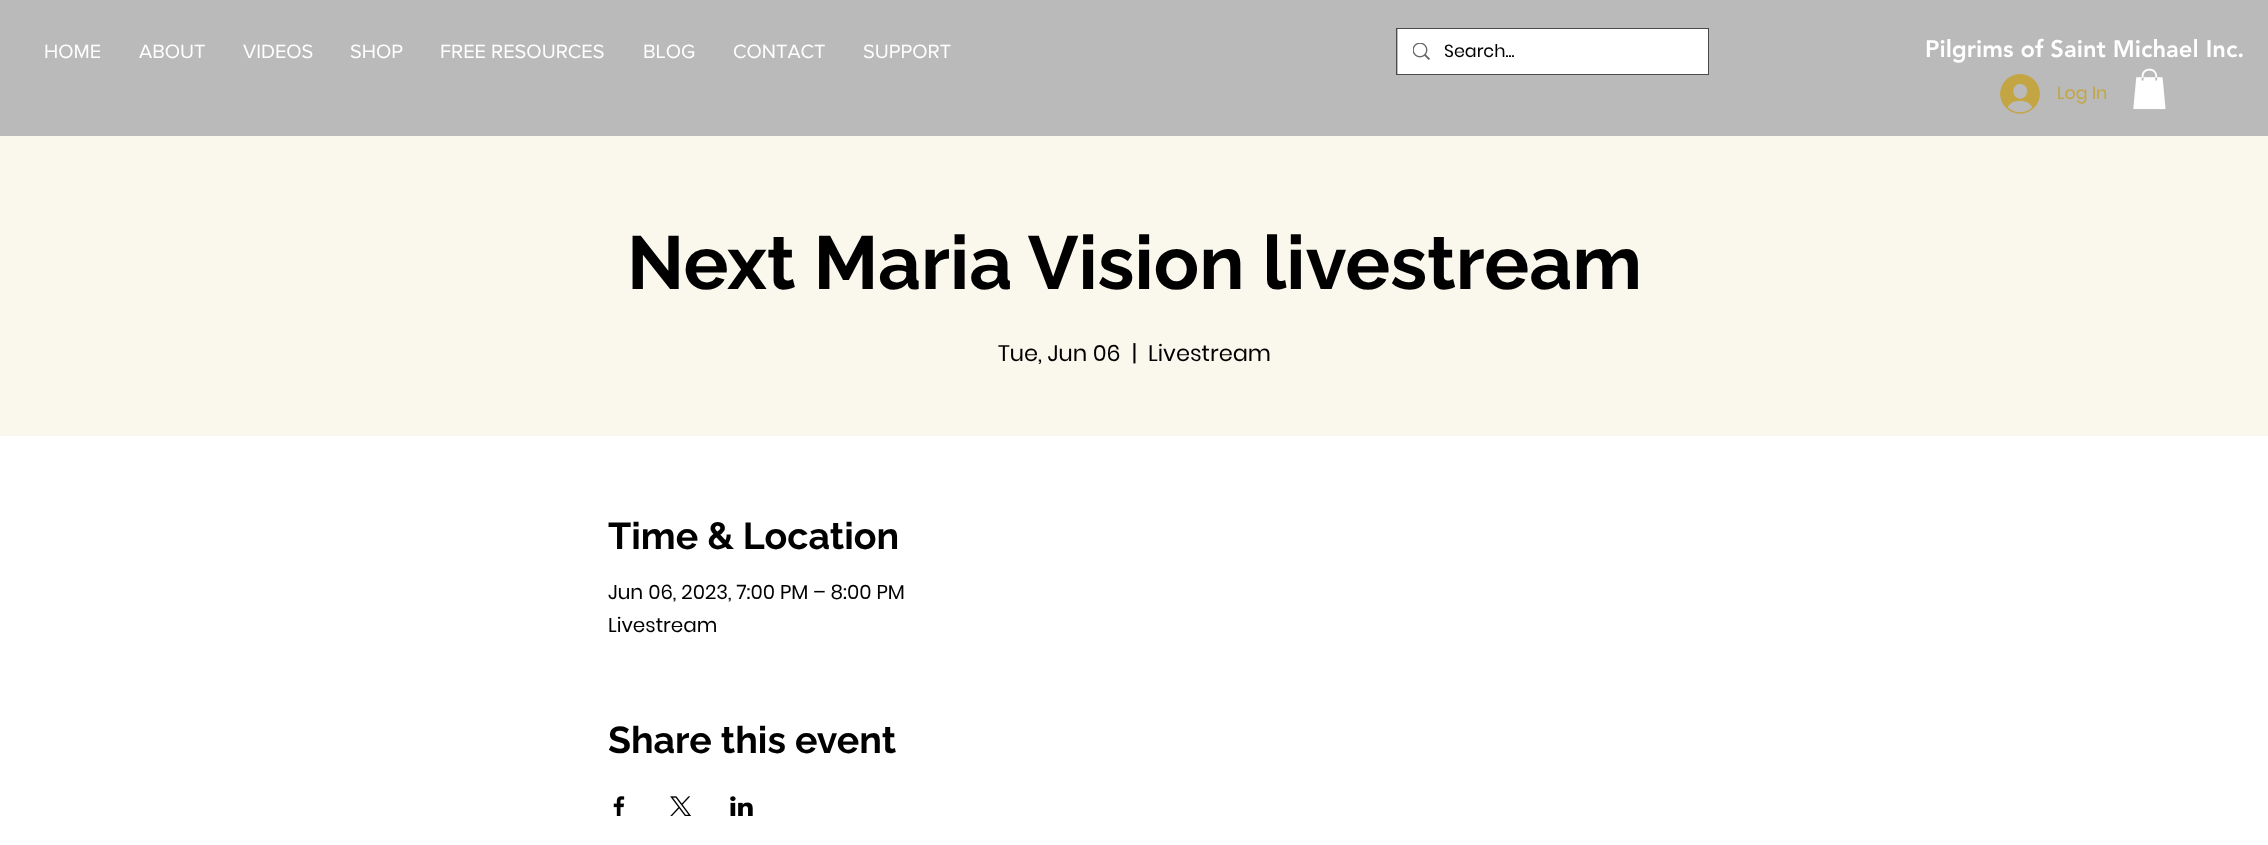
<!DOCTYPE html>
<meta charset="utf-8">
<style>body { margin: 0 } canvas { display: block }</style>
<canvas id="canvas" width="2268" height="845"></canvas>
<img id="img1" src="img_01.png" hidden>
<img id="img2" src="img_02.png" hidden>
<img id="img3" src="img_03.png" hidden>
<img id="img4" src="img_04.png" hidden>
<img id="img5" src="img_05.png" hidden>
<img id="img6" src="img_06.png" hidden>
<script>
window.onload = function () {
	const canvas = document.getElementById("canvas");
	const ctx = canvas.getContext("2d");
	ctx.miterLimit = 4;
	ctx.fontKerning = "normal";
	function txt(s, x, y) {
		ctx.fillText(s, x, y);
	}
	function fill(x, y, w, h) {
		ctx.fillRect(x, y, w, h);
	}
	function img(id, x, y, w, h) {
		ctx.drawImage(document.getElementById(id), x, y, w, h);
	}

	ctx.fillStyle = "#BABABA";
	fill(0, 0, 2268, 845);
	ctx.strokeStyle = "#4A4A4A";
	ctx.strokeRect(1396.5, 28.5, 312, 46);
	ctx.fillStyle = "#FFFFFF";
	fill(1398, 29, 310, 45);
	img("img1", 1413, 43, 17, 17);
	img("img2", 2000, 74, 40, 40);
	img("img3", 2133, 68, 33, 42);
	ctx.fillStyle = "#FAF7ED";
	fill(0, 136, 2268, 300);
	ctx.fillStyle = "#FFFFFF";
	fill(0, 436, 2268, 409);
	img("img4", 613, 796, 12, 20);
	img("img5", 670, 796, 21, 20);
	img("img6", 730, 796, 23, 20);
	ctx.font = "20px 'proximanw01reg'";
	txt("HOME", 44, 58);
	txt("ABOUT", 139, 58);
	txt("VIDEOS", 243, 58);
	txt("SHOP", 350, 58);
	txt("FREE RESOURCES", 440, 58);
	txt("BLOG", 643, 58);
	txt("CONTACT", 733, 58);
	txt("SUPPORT", 863, 58);
	ctx.font = "17.5px Poppins";
	ctx.fillStyle = "#000000";
	txt("Search...", 1444, 57);
	ctx.font = "900 23.75px 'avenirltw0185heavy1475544'";
	ctx.fillStyle = "#FFFFFF";
	txt("Pilgrims of Saint Michael Inc.", 1925, 57);
	ctx.font = "17.5px Poppins";
	ctx.fillStyle = "#C3A643";
	txt("Log In", 2057, 99);
	ctx.font = "bold 75px Raleway";
	ctx.fillStyle = "#000000";
	txt("Next Maria Vision livestream", 627, 289);
	ctx.font = "22.5px Poppins";
	txt("Tue, Jun 06", 998, 361);
	txt("|", 1132, 361);
	txt("Livestream", 1148, 361);
	ctx.font = "bold 37.5px Raleway";
	txt("Time & Location", 608, 549);
	ctx.font = "20px Poppins";
	txt("Jun 06, 2023, 7:00 PM – 8:00 PM", 608, 599);
	txt("Livestream", 608, 632);
	ctx.font = "bold 37.5px Raleway";
	txt("Share this event", 608, 753);
};
</script>
